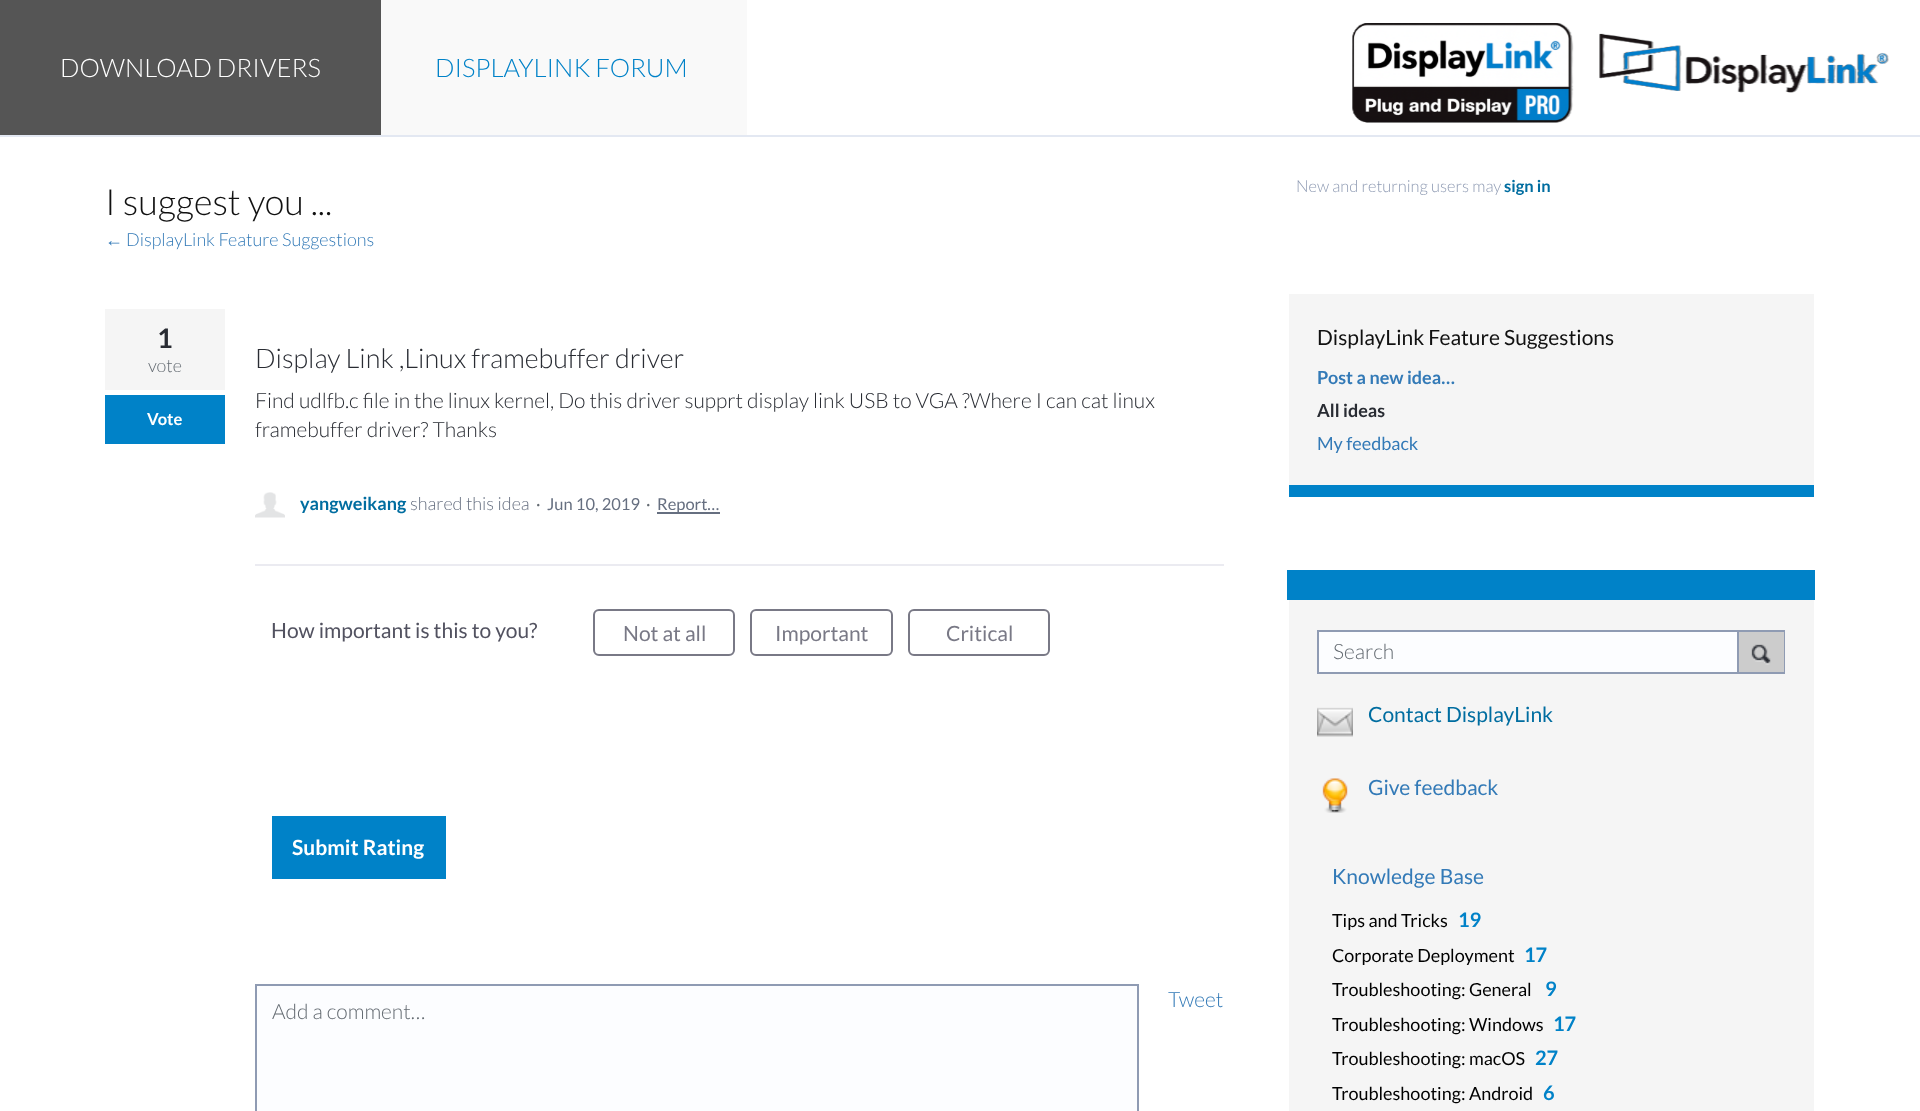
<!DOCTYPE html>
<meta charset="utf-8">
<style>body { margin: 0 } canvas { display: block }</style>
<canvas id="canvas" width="1920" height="1111"></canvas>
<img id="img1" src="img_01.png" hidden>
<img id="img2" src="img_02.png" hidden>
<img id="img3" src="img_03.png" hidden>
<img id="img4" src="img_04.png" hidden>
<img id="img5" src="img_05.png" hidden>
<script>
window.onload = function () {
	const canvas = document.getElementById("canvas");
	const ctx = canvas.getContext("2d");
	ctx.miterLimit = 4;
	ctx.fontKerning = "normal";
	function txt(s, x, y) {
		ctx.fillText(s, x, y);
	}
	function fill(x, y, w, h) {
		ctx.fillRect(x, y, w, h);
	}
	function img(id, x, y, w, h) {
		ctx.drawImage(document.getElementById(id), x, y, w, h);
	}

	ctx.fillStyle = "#FFFFFF";
	fill(0, 0, 1920, 1111);
	ctx.fillStyle = "#555555";
	fill(0, 0, 381, 135);
	ctx.fillStyle = "#F9F9F9";
	fill(381, 0, 366, 135);
	img("img1", 1352, 23, 537, 100);
	ctx.fillStyle = "#E3E8F2";
	fill(0, 135, 1920, 2);
	ctx.fillStyle = "#F5F5F5";
	fill(105, 309, 120, 81);
	ctx.fillStyle = "#0082C8";
	fill(105, 395, 120, 49);
	img("img2", 255, 492, 30, 26);
	ctx.fillStyle = "#666F80";
	fill(657, 512, 63, 2);
	ctx.fillStyle = "#EBEBF1";
	fill(255, 564, 969, 2);
	ctx.beginPath();
	ctx.roundRect(594, 610, 140, 45, 5);
	ctx.strokeStyle = "#797986";
	ctx.lineWidth = 2;
	ctx.stroke();
	ctx.beginPath();
	ctx.roundRect(751, 610, 141, 45, 5);
	ctx.stroke();
	ctx.beginPath();
	ctx.roundRect(909, 610, 140, 45, 5);
	ctx.stroke();
	ctx.fillStyle = "#0082C8";
	fill(272, 816, 174, 63);
	ctx.fillStyle = "#FCFDFF";
	ctx.beginPath();
	ctx.rect(256, 985, 882, 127);
	ctx.fill();
	ctx.strokeStyle = "#8F9BB3";
	ctx.stroke();
	ctx.fillStyle = "#F5F5F5";
	fill(1289, 294, 525, 191);
	ctx.fillStyle = "#0082C8";
	fill(1289, 485, 525, 12);
	ctx.fillStyle = "#F5F5F5";
	fill(1289, 600, 525, 511);
	ctx.fillStyle = "#0082C8";
	fill(1287, 570, 528, 30);
	ctx.fillStyle = "#FCFDFF";
	fill(1319, 632, 418, 40);
	ctx.strokeRect(1318, 631, 466, 42);
	ctx.fillStyle = "#CCCCCC";
	fill(1739, 632, 45, 40);
	ctx.fillStyle = "#8F9BB3";
	fill(1737, 632, 2, 40);
	img("img3", 1751, 644, 20, 21);
	img("img4", 1317, 707, 36, 30);
	img("img5", 1322, 778, 26, 35);
	ctx.font = "300 25.5px Lato";
	ctx.fillStyle = "#FFFFFF";
	txt("DOWNLOAD DRIVERS", 60, 77);
	ctx.fillStyle = "#0082C8";
	txt("DISPLAYLINK FORUM", 435, 77);
	ctx.font = "300 36px Lato";
	ctx.fillStyle = "#111111";
	txt("I suggest you ...", 105, 215);
	ctx.font = "18px Liberation Sans";
	ctx.fillStyle = "#337AB7";
	txt("←", 105, 246);
	ctx.font = "300 18px Lato";
	txt("DisplayLink Feature Suggestions", 126, 246);
	ctx.font = "bold 27px Lato";
	ctx.fillStyle = "#292C33";
	txt("1", 157, 348);
	ctx.font = "300 18px Lato";
	ctx.fillStyle = "#646B72";
	txt("vote", 148, 372);
	ctx.font = "bold 16.5px Lato";
	ctx.fillStyle = "#FFFFFF";
	txt("Vote", 147, 425);
	ctx.font = "300 27px Lato";
	ctx.fillStyle = "#292C33";
	txt("Display Link ,Linux framebuffer driver", 255, 368);
	ctx.font = "300 21px Lato";
	txt("Find udlfb.c file in the linux kernel, Do this driver supprt display link USB to VGA ?Where I can cat linux", 255, 408);
	txt("framebuffer driver? Thanks", 255, 437);
	ctx.font = "bold 18px Lato";
	ctx.fillStyle = "#006DA0";
	txt("yangweikang", 300, 510);
	ctx.font = "300 18px Lato";
	ctx.fillStyle = "#666F80";
	txt("shared this idea", 410, 510);
	ctx.font = "16.5px Lato";
	ctx.fillStyle = "#646B72";
	txt("·", 536, 510);
	ctx.fillStyle = "#666F80";
	txt("Jun 10, 2019", 547, 510);
	ctx.fillStyle = "#646B72";
	txt("·", 646, 510);
	ctx.fillStyle = "#666F80";
	txt("Report…", 657, 510);
	ctx.font = "21px Lato";
	ctx.fillStyle = "#525260";
	txt("How important is this to you?", 271, 638);
	ctx.fillStyle = "#797986";
	txt("Not at all", 623, 641);
	txt("Important", 775, 641);
	txt("Critical", 946, 641);
	ctx.font = "bold 21px Lato";
	ctx.fillStyle = "#FFFFFF";
	txt("Submit Rating", 292, 855);
	ctx.font = "300 21px Lato";
	ctx.fillStyle = "#337AB7";
	txt("Tweet", 1168, 1007);
	ctx.fillStyle = "#646B72";
	txt("Add a comment…", 272, 1019);
	ctx.font = "300 16.5px Lato";
	ctx.fillStyle = "#8F9BB3";
	txt("New and returning users may", 1296, 192);
	ctx.font = "bold 16.5px Lato";
	ctx.fillStyle = "#006DA0";
	txt("sign in", 1504, 192);
	ctx.font = "21px Lato";
	ctx.fillStyle = "#111111";
	txt("DisplayLink Feature Suggestions", 1317, 345);
	ctx.font = "bold 18px Lato";
	ctx.fillStyle = "#337AB7";
	txt("Post a new idea…", 1317, 384);
	ctx.fillStyle = "#292C33";
	txt("All ideas", 1317, 417);
	ctx.font = "18px Lato";
	ctx.fillStyle = "#337AB7";
	txt("My feedback", 1317, 450);
	ctx.font = "300 21px Lato";
	ctx.fillStyle = "#646B72";
	txt("Search", 1333, 659);
	ctx.font = "21px Lato";
	ctx.fillStyle = "#006DA0";
	txt("Contact DisplayLink", 1368, 722);
	ctx.fillStyle = "#337AB7";
	txt("Give feedback", 1368, 795);
	txt("Knowledge Base", 1332, 884);
	ctx.font = "18px Lato";
	ctx.fillStyle = "#000000";
	txt("Tips and Tricks", 1332, 927);
	ctx.font = "bold 20px Lato";
	ctx.fillStyle = "#0082C8";
	txt("19", 1458, 927);
	ctx.font = "18px Lato";
	ctx.fillStyle = "#000000";
	txt("Corporate Deployment", 1332, 962);
	ctx.font = "bold 20px Lato";
	ctx.fillStyle = "#0082C8";
	txt("17", 1524, 962);
	ctx.font = "18px Lato";
	ctx.fillStyle = "#000000";
	txt("Troubleshooting: General", 1332, 996);
	ctx.font = "bold 20px Lato";
	ctx.fillStyle = "#0082C8";
	txt("9", 1545, 996);
	ctx.font = "18px Lato";
	ctx.fillStyle = "#000000";
	txt("Troubleshooting: Windows", 1332, 1031);
	ctx.font = "bold 20px Lato";
	ctx.fillStyle = "#0082C8";
	txt("17", 1553, 1031);
	ctx.font = "18px Lato";
	ctx.fillStyle = "#000000";
	txt("Troubleshooting: macOS", 1332, 1065);
	ctx.font = "bold 20px Lato";
	ctx.fillStyle = "#0082C8";
	txt("27", 1535, 1065);
	ctx.font = "18px Lato";
	ctx.fillStyle = "#000000";
	txt("Troubleshooting: Android", 1332, 1100);
	ctx.font = "bold 20px Lato";
	ctx.fillStyle = "#0082C8";
	txt("6", 1543, 1100);
};
</script>
